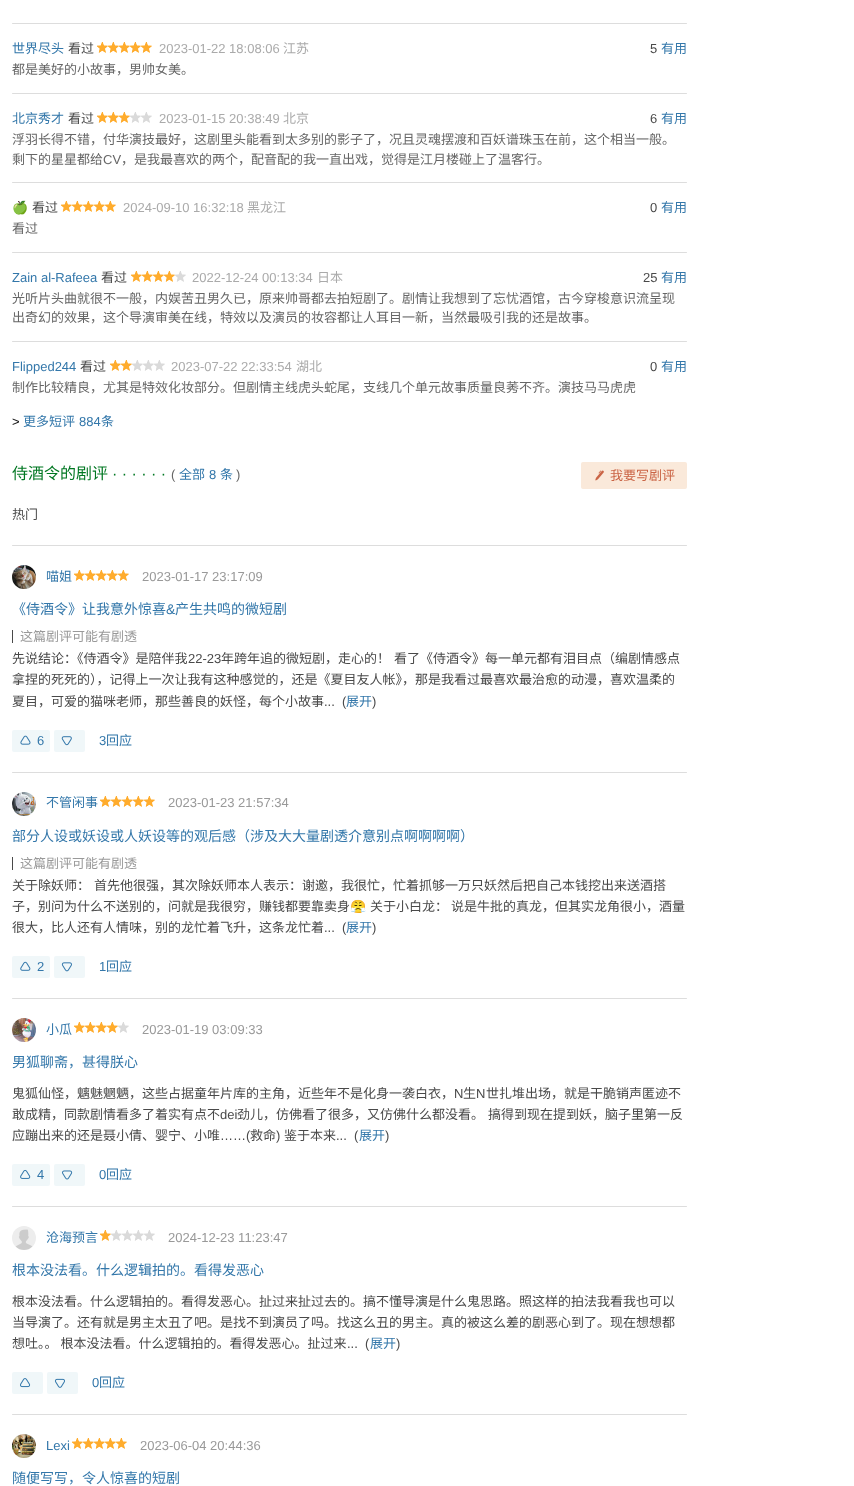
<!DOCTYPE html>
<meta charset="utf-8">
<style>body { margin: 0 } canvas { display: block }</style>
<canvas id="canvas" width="854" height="1486"></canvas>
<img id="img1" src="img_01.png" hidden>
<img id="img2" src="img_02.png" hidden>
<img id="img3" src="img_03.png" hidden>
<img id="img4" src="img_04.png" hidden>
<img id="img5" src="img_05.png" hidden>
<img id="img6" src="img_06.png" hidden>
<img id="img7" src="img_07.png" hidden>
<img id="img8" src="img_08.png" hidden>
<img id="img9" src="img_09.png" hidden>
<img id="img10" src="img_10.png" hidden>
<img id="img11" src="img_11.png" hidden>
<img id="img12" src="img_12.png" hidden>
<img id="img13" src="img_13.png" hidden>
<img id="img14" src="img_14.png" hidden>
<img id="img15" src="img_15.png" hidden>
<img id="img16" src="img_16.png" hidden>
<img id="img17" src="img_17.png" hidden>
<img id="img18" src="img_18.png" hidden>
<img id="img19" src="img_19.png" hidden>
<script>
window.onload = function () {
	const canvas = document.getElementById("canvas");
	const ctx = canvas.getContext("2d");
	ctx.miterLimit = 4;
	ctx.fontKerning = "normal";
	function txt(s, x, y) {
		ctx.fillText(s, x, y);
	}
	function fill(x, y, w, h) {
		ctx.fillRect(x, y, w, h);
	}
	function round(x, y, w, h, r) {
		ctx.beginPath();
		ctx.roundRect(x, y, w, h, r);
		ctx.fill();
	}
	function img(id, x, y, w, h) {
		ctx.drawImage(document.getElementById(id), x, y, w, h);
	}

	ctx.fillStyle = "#FFFFFF";
	fill(0, 0, 854, 1486);
	ctx.fillStyle = "#DDDDDD";
	round(12, 23, 675, 1, 0.5);
	img("img1", 97, 42, 55, 11);
	round(12, 93, 675, 1, 0.5);
	img("img2", 97, 112, 55, 11);
	round(12, 182, 675, 1, 0.5);
	img("img1", 61, 201, 55, 11);
	round(12, 252, 675, 1, 0.5);
	img("img3", 131, 271, 55, 11);
	round(12, 341, 675, 1, 0.5);
	img("img4", 110, 360, 55, 11);
	ctx.fillStyle = "#FAE9DA";
	round(581, 462, 106, 27, 2);
	img("img5", 595, 470, 9, 11);
	ctx.fillStyle = "#DDDDDD";
	round(12, 545, 675, 1, 0.5);
	img("img6", 12, 565, 24, 24);
	img("img1", 74, 570, 55, 11);
	ctx.fillStyle = "#494949";
	fill(12, 630, 1, 13);
	ctx.fillStyle = "#F0F7F9";
	round(12, 730, 38, 22, 2);
	img("img7", 20, 735, 11, 10);
	round(54, 730, 31, 22, 2);
	img("img8", 61, 736, 11, 10);
	ctx.fillStyle = "#DDDDDD";
	round(12, 772, 675, 1, 0.5);
	img("img9", 12, 792, 24, 24);
	img("img1", 100, 796, 55, 11);
	ctx.fillStyle = "#494949";
	fill(12, 857, 1, 13);
	ctx.fillStyle = "#F0F7F9";
	round(12, 956, 38, 22, 2);
	img("img10", 20, 961, 11, 10);
	round(54, 956, 31, 22, 2);
	img("img11", 61, 962, 11, 10);
	ctx.fillStyle = "#DDDDDD";
	round(12, 998, 675, 1, 0.5);
	img("img12", 12, 1018, 24, 24);
	img("img3", 74, 1022, 55, 11);
	ctx.fillStyle = "#F0F7F9";
	round(12, 1164, 38, 22, 2);
	img("img13", 20, 1169, 11, 10);
	round(54, 1164, 31, 22, 2);
	img("img14", 62, 1170, 11, 10);
	ctx.fillStyle = "#DDDDDD";
	round(12, 1206, 675, 1, 0.5);
	img("img15", 12, 1226, 24, 24);
	img("img16", 100, 1230, 55, 11);
	ctx.fillStyle = "#F0F7F9";
	round(12, 1372, 31, 22, 2);
	img("img17", 20, 1378, 11, 10);
	round(47, 1372, 31, 22, 2);
	img("img18", 54, 1378, 11, 10);
	ctx.fillStyle = "#DDDDDD";
	round(12, 1414, 675, 1, 0.5);
	img("img19", 12, 1434, 24, 24);
	img("img1", 72, 1438, 55, 11);
	ctx.font = "13px Noto Sans CJK SC";
	ctx.fillStyle = "#3377AA";
	txt("世界尽头", 12, 53);
	ctx.fillStyle = "#494949";
	txt("看过", 68, 53);
	ctx.font = "13px Liberation Sans";
	ctx.fillStyle = "#AAAAAA";
	txt("2023-01-22 18:08:06", 159, 53);
	ctx.font = "13px Noto Sans CJK SC";
	txt("江苏", 283, 53);
	ctx.font = "13px Liberation Sans";
	ctx.fillStyle = "#494949";
	txt("5", 650, 53);
	ctx.font = "13px Noto Sans CJK SC";
	ctx.fillStyle = "#3377AA";
	txt("有用", 661, 53);
	ctx.fillStyle = "#666666";
	txt("都是美好的小故事，男帅女美。", 12, 74);
	ctx.fillStyle = "#3377AA";
	txt("北京秀才", 12, 123);
	ctx.fillStyle = "#494949";
	txt("看过", 68, 123);
	ctx.font = "13px Liberation Sans";
	ctx.fillStyle = "#AAAAAA";
	txt("2023-01-15 20:38:49", 159, 123);
	ctx.font = "13px Noto Sans CJK SC";
	txt("北京", 283, 123);
	ctx.font = "13px Liberation Sans";
	ctx.fillStyle = "#494949";
	txt("6", 650, 123);
	ctx.font = "13px Noto Sans CJK SC";
	ctx.fillStyle = "#3377AA";
	txt("有用", 661, 123);
	ctx.fillStyle = "#666666";
	txt("浮羽长得不错，付华演技最好，这剧里头能看到太多别的影子了，况且灵魂摆渡和百妖谱珠玉在前，这个相当一般。", 12, 144);
	txt("剩下的星星都给", 12, 164);
	ctx.font = "13px Liberation Sans";
	txt("CV", 103, 164);
	ctx.font = "13px Noto Sans CJK SC";
	txt("，是我最喜欢的两个，配音配的我一直出戏，觉得是江月楼碰上了温客行。", 121, 164);
	ctx.font = "13px Noto Color Emoji";
	ctx.fillStyle = "#3377AA";
	txt("🍏", 12, 212);
	ctx.font = "13px Noto Sans CJK SC";
	ctx.fillStyle = "#494949";
	txt("看过", 32, 212);
	ctx.font = "13px Liberation Sans";
	ctx.fillStyle = "#AAAAAA";
	txt("2024-09-10 16:32:18", 123, 212);
	ctx.font = "13px Noto Sans CJK SC";
	txt("黑龙江", 247, 212);
	ctx.font = "13px Liberation Sans";
	ctx.fillStyle = "#494949";
	txt("0", 650, 212);
	ctx.font = "13px Noto Sans CJK SC";
	ctx.fillStyle = "#3377AA";
	txt("有用", 661, 212);
	ctx.fillStyle = "#666666";
	txt("看过", 12, 233);
	ctx.font = "13px Liberation Sans";
	ctx.fillStyle = "#3377AA";
	txt("Zain al-Rafeea", 12, 282);
	ctx.font = "13px Noto Sans CJK SC";
	ctx.fillStyle = "#494949";
	txt("看过", 101, 282);
	ctx.font = "13px Liberation Sans";
	ctx.fillStyle = "#AAAAAA";
	txt("2022-12-24 00:13:34", 192, 282);
	ctx.font = "13px Noto Sans CJK SC";
	txt("日本", 317, 282);
	ctx.font = "13px Liberation Sans";
	ctx.fillStyle = "#494949";
	txt("25", 643, 282);
	ctx.font = "13px Noto Sans CJK SC";
	ctx.fillStyle = "#3377AA";
	txt("有用", 661, 282);
	ctx.fillStyle = "#666666";
	txt("光听片头曲就很不一般，内娱苦丑男久已，原来帅哥都去拍短剧了。剧情让我想到了忘忧酒馆，古今穿梭意识流呈现", 12, 303);
	txt("出奇幻的效果，这个导演审美在线，特效以及演员的妆容都让人耳目一新，当然最吸引我的还是故事。", 12, 322);
	ctx.font = "13px Liberation Sans";
	ctx.fillStyle = "#3377AA";
	txt("Flipped244", 12, 371);
	ctx.font = "13px Noto Sans CJK SC";
	ctx.fillStyle = "#494949";
	txt("看过", 80, 371);
	ctx.font = "13px Liberation Sans";
	ctx.fillStyle = "#AAAAAA";
	txt("2023-07-22 22:33:54", 171, 371);
	ctx.font = "13px Noto Sans CJK SC";
	txt("湖北", 296, 371);
	ctx.font = "13px Liberation Sans";
	ctx.fillStyle = "#494949";
	txt("0", 650, 371);
	ctx.font = "13px Noto Sans CJK SC";
	ctx.fillStyle = "#3377AA";
	txt("有用", 661, 371);
	ctx.fillStyle = "#666666";
	txt("制作比较精良，尤其是特效化妆部分。但剧情主线虎头蛇尾，支线几个单元故事质量良莠不齐。演技马马虎虎", 12, 392);
	ctx.font = "13px Liberation Sans";
	ctx.fillStyle = "#111111";
	txt(">", 12, 426);
	ctx.font = "13px Noto Sans CJK SC";
	ctx.fillStyle = "#3377AA";
	txt("更多短评", 23, 426);
	ctx.font = "13px Liberation Sans";
	txt("884", 79, 426);
	ctx.font = "13px Noto Sans CJK SC";
	txt("条", 101, 426);
	ctx.font = "16px Noto Sans CJK SC";
	ctx.fillStyle = "#007722";
	txt("侍酒令的剧评", 12, 479);
	ctx.font = "16px Liberation Sans";
	txt("· · · · · ·", 112, 479);
	ctx.font = "13px Liberation Sans";
	ctx.fillStyle = "#666666";
	txt("(", 171, 479);
	ctx.font = "13px Noto Sans CJK SC";
	ctx.fillStyle = "#3377AA";
	txt("全部", 179, 479);
	ctx.font = "13px Liberation Sans";
	txt("8", 209, 479);
	ctx.font = "13px Noto Sans CJK SC";
	txt("条", 220, 479);
	ctx.font = "13px Liberation Sans";
	ctx.fillStyle = "#666666";
	txt(")", 236, 479);
	ctx.font = "13px Noto Sans CJK SC";
	ctx.fillStyle = "#CA6445";
	txt("我要写剧评", 610, 480);
	ctx.fillStyle = "#494949";
	txt("热门", 12, 519);
	ctx.fillStyle = "#3377AA";
	txt("喵姐", 46, 581);
	ctx.font = "13px Liberation Sans";
	ctx.fillStyle = "#999999";
	txt("2023-01-17 23:17:09", 142, 581);
	ctx.font = "14px Noto Sans CJK SC";
	ctx.fillStyle = "#3377AA";
	txt("《侍酒令》让我意外惊喜", 12, 614);
	ctx.font = "14px Liberation Sans";
	txt("&", 166, 614);
	ctx.font = "14px Noto Sans CJK SC";
	txt("产生共鸣的微短剧", 175, 614);
	ctx.font = "13px Noto Sans CJK SC";
	ctx.fillStyle = "#999999";
	txt("这篇剧评可能有剧透", 20, 641);
	ctx.fillStyle = "#494949";
	txt("先说结论：《侍酒令》是陪伴我", 12, 663);
	ctx.font = "13px Liberation Sans";
	txt("22-23", 188, 663);
	ctx.wordSpacing = "1px";
	ctx.font = "13px Noto Sans CJK SC";
	txt("年跨年追的微短剧，走心的！ 看了《侍酒令》每一单元都有泪目点（编剧情感点", 221, 663);
	ctx.wordSpacing = "0px";
	txt("拿捏的死死的），记得上一次让我有这种感觉的，还是《夏目友人帐》，那是我看过最喜欢最治愈的动漫，喜欢温柔的", 12, 684);
	txt("夏目，可爱的猫咪老师，那些善良的妖怪，每个小故事", 12, 706);
	ctx.font = "13px Liberation Sans";
	txt("...", 324, 706);
	txt("(", 342, 706);
	ctx.font = "13px Noto Sans CJK SC";
	ctx.fillStyle = "#3377AA";
	txt("展开", 346, 706);
	ctx.font = "13px Liberation Sans";
	ctx.fillStyle = "#494949";
	txt(")", 372, 706);
	ctx.fillStyle = "#3377AA";
	txt("6", 37, 745);
	txt("3", 99, 745);
	ctx.font = "13px Noto Sans CJK SC";
	txt("回应", 106, 745);
	txt("不管闲事", 46, 807);
	ctx.font = "13px Liberation Sans";
	ctx.fillStyle = "#999999";
	txt("2023-01-23 21:57:34", 168, 807);
	ctx.font = "14px Noto Sans CJK SC";
	ctx.fillStyle = "#3377AA";
	txt("部分人设或妖设或人妖设等的观后感（涉及大大量剧透介意别点啊啊啊啊）", 12, 841);
	ctx.font = "13px Noto Sans CJK SC";
	ctx.fillStyle = "#999999";
	txt("这篇剧评可能有剧透", 20, 868);
	ctx.wordSpacing = "1px";
	ctx.fillStyle = "#494949";
	txt("关于除妖师： 首先他很强，其次除妖师本人表示：谢邀，我很忙，忙着抓够一万只妖然后把自己本钱挖出来送酒搭", 12, 890);
	ctx.wordSpacing = "0px";
	txt("子，别问为什么不送别的，问就是我很穷，赚钱都要靠卖身", 12, 911);
	ctx.font = "13px Noto Color Emoji";
	txt("😤", 350, 911);
	ctx.font = "13px Noto Sans CJK SC";
	txt("关于小白龙：", 370, 911);
	txt("说是牛批的真龙，但其实龙角很小，酒量", 451, 911);
	txt("很大，比人还有人情味，别的龙忙着飞升，这条龙忙着", 12, 932);
	ctx.font = "13px Liberation Sans";
	txt("...", 324, 932);
	txt("(", 342, 932);
	ctx.font = "13px Noto Sans CJK SC";
	ctx.fillStyle = "#3377AA";
	txt("展开", 346, 932);
	ctx.font = "13px Liberation Sans";
	ctx.fillStyle = "#494949";
	txt(")", 372, 932);
	ctx.fillStyle = "#3377AA";
	txt("2", 37, 971);
	txt("1", 99, 971);
	ctx.font = "13px Noto Sans CJK SC";
	txt("回应", 106, 971);
	txt("小瓜", 46, 1034);
	ctx.font = "13px Liberation Sans";
	ctx.fillStyle = "#999999";
	txt("2023-01-19 03:09:33", 142, 1034);
	ctx.font = "14px Noto Sans CJK SC";
	ctx.fillStyle = "#3377AA";
	txt("男狐聊斋，甚得朕心", 12, 1067);
	ctx.font = "13px Noto Sans CJK SC";
	ctx.fillStyle = "#494949";
	txt("鬼狐仙怪，魑魅魍魉，这些占据童年片库的主角，近些年不是化身一袭白衣，", 12, 1098);
	ctx.font = "13px Liberation Sans";
	txt("N", 454, 1098);
	ctx.font = "13px Noto Sans CJK SC";
	txt("生", 463, 1098);
	ctx.font = "13px Liberation Sans";
	txt("N", 476, 1098);
	ctx.font = "13px Noto Sans CJK SC";
	txt("世扎堆出场，就是干脆销声匿迹不", 486, 1098);
	txt("敢成精，同款剧情看多了着实有点不", 12, 1119);
	ctx.font = "13px Liberation Sans";
	txt("dei", 220, 1119);
	ctx.wordSpacing = "1px";
	ctx.font = "13px Noto Sans CJK SC";
	txt("劲儿，仿佛看了很多，又仿佛什么都没看。 搞得到现在提到妖，脑子里第一反", 237, 1119);
	ctx.wordSpacing = "0px";
	txt("应蹦出来的还是聂小倩、婴宁、小唯", 12, 1140);
	ctx.font = "13px Liberation Sans";
	txt("……(", 220, 1140);
	ctx.font = "13px Noto Sans CJK SC";
	txt("救命", 250, 1140);
	ctx.font = "13px Liberation Sans";
	txt(")", 276, 1140);
	ctx.font = "13px Noto Sans CJK SC";
	txt("鉴于本来", 284, 1140);
	ctx.font = "13px Liberation Sans";
	txt("...", 336, 1140);
	txt("(", 354, 1140);
	ctx.font = "13px Noto Sans CJK SC";
	ctx.fillStyle = "#3377AA";
	txt("展开", 359, 1140);
	ctx.font = "13px Liberation Sans";
	ctx.fillStyle = "#494949";
	txt(")", 385, 1140);
	ctx.fillStyle = "#3377AA";
	txt("4", 37, 1179);
	txt("0", 99, 1179);
	ctx.font = "13px Noto Sans CJK SC";
	txt("回应", 106, 1179);
	txt("沧海预言", 46, 1242);
	ctx.font = "13px Liberation Sans";
	ctx.fillStyle = "#999999";
	txt("2024-12-23 11:23:47", 168, 1242);
	ctx.font = "14px Noto Sans CJK SC";
	ctx.fillStyle = "#3377AA";
	txt("根本没法看。什么逻辑拍的。看得发恶心", 12, 1275);
	ctx.font = "13px Noto Sans CJK SC";
	ctx.fillStyle = "#494949";
	txt("根本没法看。什么逻辑拍的。看得发恶心。扯过来扯过去的。搞不懂导演是什么鬼思路。照这样的拍法我看我也可以", 12, 1306);
	txt("当导演了。还有就是男主太丑了吧。是找不到演员了吗。找这么丑的男主。真的被这么差的剧恶心到了。现在想想都", 12, 1327);
	txt("想吐。。 根本没法看。什么逻辑拍的。看得发恶心。扯过来", 12, 1348);
	ctx.font = "13px Liberation Sans";
	txt("...", 347, 1348);
	txt("(", 365, 1348);
	ctx.font = "13px Noto Sans CJK SC";
	ctx.fillStyle = "#3377AA";
	txt("展开", 370, 1348);
	ctx.font = "13px Liberation Sans";
	ctx.fillStyle = "#494949";
	txt(")", 396, 1348);
	ctx.fillStyle = "#3377AA";
	txt("0", 92, 1387);
	ctx.font = "13px Noto Sans CJK SC";
	txt("回应", 99, 1387);
	ctx.font = "13px Liberation Sans";
	txt("Lexi", 46, 1450);
	ctx.fillStyle = "#999999";
	txt("2023-06-04 20:44:36", 140, 1450);
	ctx.font = "14px Noto Sans CJK SC";
	ctx.fillStyle = "#3377AA";
	txt("随便写写，令人惊喜的短剧", 12, 1483);
};
</script>
